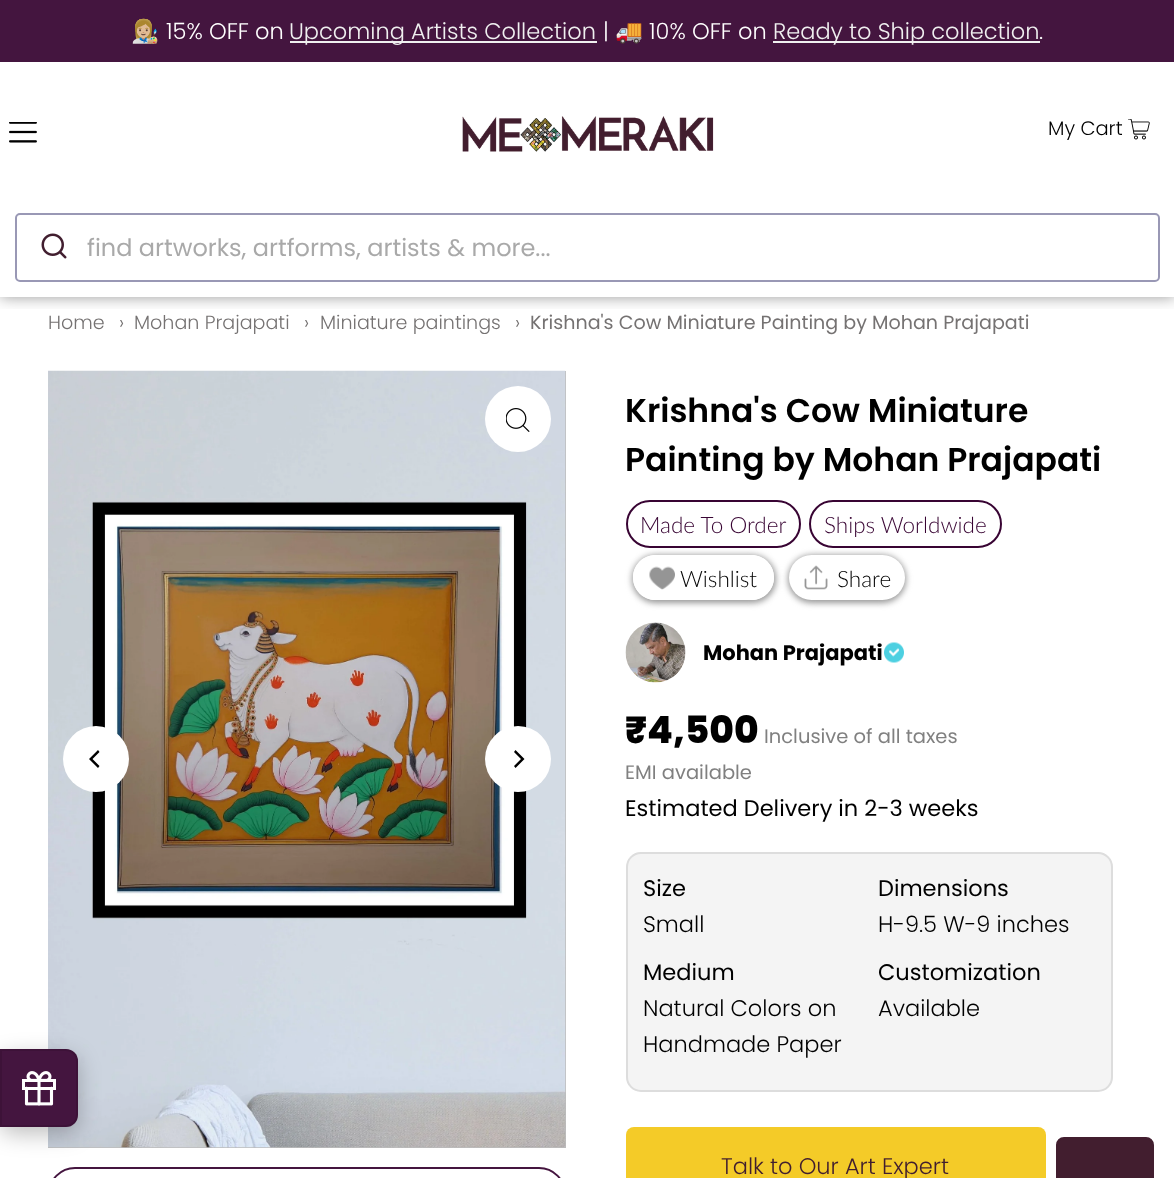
<!DOCTYPE html>
<meta charset="utf-8">
<style>body { margin: 0 } canvas { display: block }</style>
<canvas id="canvas" width="1174" height="1178"></canvas>
<img id="img1" src="img_01.png" hidden>
<img id="img2" src="img_02.png" hidden>
<img id="img3" src="img_03.png" hidden>
<img id="img4" src="img_04.png" hidden>
<img id="img5" src="img_05.png" hidden>
<img id="img6" src="img_06.png" hidden>
<img id="img7" src="img_07.png" hidden>
<img id="img8" src="img_08.png" hidden>
<img id="img9" src="img_09.png" hidden>
<img id="img10" src="img_10.png" hidden>
<img id="img11" src="img_11.png" hidden>
<script>
window.onload = function () {
	const canvas = document.getElementById("canvas");
	const ctx = canvas.getContext("2d");
	ctx.miterLimit = 4;
	ctx.fontKerning = "normal";
	function txt(s, x, y) {
		ctx.fillText(s, x, y);
	}
	function fill(x, y, w, h) {
		ctx.fillRect(x, y, w, h);
	}
	function round(x, y, w, h, r) {
		ctx.beginPath();
		ctx.roundRect(x, y, w, h, r);
		ctx.fill();
	}
	function img(id, x, y, w, h) {
		ctx.drawImage(document.getElementById(id), x, y, w, h);
	}

	ctx.fillStyle = "#FFFFFF";
	fill(0, 0, 1174, 1178);
	ctx.save();
	ctx.beginPath();
	ctx.rect(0, 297, 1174, 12);
	ctx.clip();
	ctx.fillStyle = "rgba(0, 0, 0, 0.4)";
	ctx.filter = "blur(7.5px)";
	ctx.beginPath();
	ctx.rect(0, 62, 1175, 235);
	ctx.fill();
	ctx.filter = "none";
	ctx.restore();
	ctx.fillStyle = "#44153F";
	fill(0, 0, 1174, 62);
	ctx.fillStyle = "#F0F0F0";
	fill(290, 41, 307, 2);
	fill(773, 41, 267, 2);
	img("img1", 9, 122, 28, 21);
	img("img2", 462, 116, 252, 36);
	img("img3", 1128, 119, 22, 21);
	ctx.beginPath();
	ctx.roundRect(16, 214, 1143, 67, 4);
	ctx.strokeStyle = "#9998B5";
	ctx.lineWidth = 2;
	ctx.stroke();
	img("img4", 41, 233, 26, 26);
	ctx.fillStyle = "#BCBCBC";
	fill(48, 371, 518, 777);
	img("img5", 48, 370, 518, 778);
	ctx.fillStyle = "#FFFFFF";
	ctx.beginPath();
	ctx.arc(518, 419, 33, 0, Math.PI * 2);
	ctx.fill();
	img("img6", 506, 408, 24, 24);
	ctx.beginPath();
	ctx.arc(96, 759, 33, 0, Math.PI * 2);
	ctx.fill();
	ctx.fillStyle = "#000000";
	ctx.beginPath();
	ctx.moveTo(89, 759);
	ctx.lineTo(98, 768);
	ctx.lineTo(99.5, 766);
	ctx.lineTo(92.5, 759);
	ctx.lineTo(99.5, 752);
	ctx.lineTo(98, 750);
	ctx.closePath();
	ctx.fill();
	ctx.fillStyle = "#FFFFFF";
	ctx.beginPath();
	ctx.arc(518, 759, 33, 0, Math.PI * 2);
	ctx.fill();
	ctx.fillStyle = "#000000";
	ctx.beginPath();
	ctx.moveTo(524.5, 759);
	ctx.lineTo(515.5, 750);
	ctx.lineTo(514, 752);
	ctx.lineTo(521, 759);
	ctx.lineTo(514, 766);
	ctx.lineTo(515.5, 768);
	ctx.closePath();
	ctx.fill();
	ctx.beginPath();
	ctx.roundRect(49, 1168, 516, 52, 39.5);
	ctx.strokeStyle = "#44153F";
	ctx.stroke();
	ctx.beginPath();
	ctx.roundRect(627, 501, 173, 46, 23);
	ctx.strokeStyle = "#380433";
	ctx.stroke();
	ctx.beginPath();
	ctx.roundRect(810, 501, 191, 46, 23);
	ctx.stroke();
	ctx.save();
	ctx.beginPath();
	ctx.moveTo(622, 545);
	ctx.lineTo(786, 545);
	ctx.lineTo(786, 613);
	ctx.lineTo(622, 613);
	ctx.closePath();
	ctx.moveTo(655.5, 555);
	ctx.lineTo(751.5, 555);
	ctx.bezierCurveTo(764, 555, 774, 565, 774, 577.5);
	ctx.bezierCurveTo(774, 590, 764, 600, 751.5, 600);
	ctx.lineTo(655.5, 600);
	ctx.bezierCurveTo(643, 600, 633, 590, 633, 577.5);
	ctx.bezierCurveTo(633, 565, 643, 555, 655.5, 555);
	ctx.closePath();
	ctx.clip("evenodd");
	ctx.fillStyle = "rgba(149, 149, 149, 0.99)";
	ctx.filter = "blur(3px)";
	ctx.beginPath();
	ctx.roundRect(632, 555, 144, 48, 24);
	ctx.fill();
	ctx.filter = "none";
	ctx.restore();
	ctx.beginPath();
	ctx.roundRect(634.5, 556.5, 138, 42, 21);
	ctx.strokeStyle = "#FFFFFF";
	ctx.lineWidth = 3;
	ctx.stroke();
	img("img7", 649, 566, 26, 24);
	ctx.fillStyle = "rgba(149, 149, 149, 0.99)";
	ctx.filter = "blur(3px)";
	ctx.beginPath();
	ctx.roundRect(788, 555, 118, 48, 24);
	ctx.fill();
	ctx.filter = "none";
	ctx.fillStyle = "#FFFFFF";
	round(789, 555, 116, 45, 22.5);
	img("img8", 804, 565, 24, 25);
	img("img9", 625, 622, 61, 61);
	img("img10", 884, 642, 20, 21);
	ctx.fillStyle = "#F4F4F4";
	round(626, 852, 487, 240, 15);
	ctx.beginPath();
	ctx.roundRect(627, 853, 485, 238, 14);
	ctx.strokeStyle = "rgba(17, 17, 17, 0.1)";
	ctx.lineWidth = 2;
	ctx.stroke();
	ctx.fillStyle = "#F4CB28";
	round(626, 1127, 420, 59, 8);
	ctx.fillStyle = "#421E2F";
	ctx.beginPath();
	ctx.roundRect(1057, 1138, 96, 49, 7);
	ctx.fill();
	ctx.strokeStyle = "#421E2F";
	ctx.stroke();
	ctx.fillStyle = "rgba(0, 0, 0, 0.25)";
	ctx.filter = "blur(11px)";
	ctx.beginPath();
	ctx.roundRect(0, 1056, 78, 78, 12);
	ctx.fill();
	ctx.filter = "none";
	ctx.fillStyle = "#44153F";
	ctx.beginPath();
	ctx.roundRect(0, 1049, 78, 78, [0, 12, 12, 0]);
	ctx.fill();
	ctx.beginPath();
	ctx.roundRect(1, 1050, 76, 76, [0, 11, 11, 0]);
	ctx.strokeStyle = "rgba(0, 0, 0, 0.1)";
	ctx.stroke();
	img("img11", 22, 1071, 34, 35);
	ctx.font = "22.5px Noto Color Emoji";
	ctx.fillStyle = "#FFFFFF";
	txt("👩🏼‍🎨", 131, 39);
	ctx.font = "300 22.5px Poppins";
	txt("15% OFF on", 166, 39);
	ctx.fillStyle = "#F0F0F0";
	txt("Upcoming Artists Collection", 289, 39);
	ctx.fillStyle = "#FFFFFF";
	txt("|", 603, 39);
	ctx.font = "22.5px Noto Color Emoji";
	txt("🚚", 615, 39);
	ctx.font = "300 22.5px Poppins";
	txt("10% OFF on", 649, 39);
	ctx.fillStyle = "#F0F0F0";
	txt("Ready to Ship collection", 773, 39);
	ctx.fillStyle = "#FFFFFF";
	txt(".", 1039, 39);
	ctx.font = "300 19.5px Poppins";
	ctx.fillStyle = "#000000";
	txt("My Cart", 1048, 135);
	ctx.font = "24px Poppins";
	ctx.fillStyle = "#A9A9A9";
	txt("find artworks, artforms, artists & more...", 87, 256);
	ctx.font = "300 19.1px Poppins";
	ctx.fillStyle = "#757272";
	txt("Home", 48, 329);
	txt("›", 119, 329);
	txt("Mohan Prajapati", 134, 329);
	txt("›", 304, 329);
	txt("Miniature paintings", 320, 329);
	txt("›", 515, 329);
	ctx.font = "19.1px Poppins";
	txt("Krishna's Cow Miniature Painting by Mohan Prajapati", 530, 329);
	ctx.font = "600 33px Poppins";
	ctx.fillStyle = "#000000";
	txt("Krishna's Cow Miniature", 625, 422);
	txt("Painting by Mohan Prajapati", 625, 471);
	ctx.font = "300 22.5px Lato";
	ctx.fillStyle = "#380433";
	txt("Made To Order", 640, 533);
	txt("Ships Worldwide", 824, 533);
	ctx.fillStyle = "#000000";
	txt("Wishlist", 680, 587);
	txt("Share", 837, 587);
	ctx.font = "bold 21px Poppins";
	txt("Mohan Prajapati", 703, 660);
	ctx.font = "800 37.5px Poppins";
	txt("₹4,500", 625, 743);
	ctx.font = "19.5px Poppins";
	ctx.fillStyle = "#808080";
	txt("Inclusive of all taxes", 764, 743);
	txt("EMI available", 625, 779);
	ctx.font = "22.5px Poppins";
	ctx.fillStyle = "#000000";
	txt("Estimated Delivery in 2-3 weeks", 625, 816);
	txt("Size", 643, 896);
	ctx.font = "300 22.5px Poppins";
	txt("Small", 643, 932);
	ctx.font = "22.5px Poppins";
	txt("Dimensions", 878, 896);
	ctx.font = "300 22.5px Poppins";
	txt("H-9.5 W-9 inches", 878, 932);
	ctx.font = "22.5px Poppins";
	txt("Medium", 643, 980);
	ctx.font = "300 22.5px Poppins";
	txt("Natural Colors on", 643, 1016);
	txt("Handmade Paper", 643, 1052);
	ctx.font = "22.5px Poppins";
	txt("Customization", 878, 980);
	ctx.font = "300 22.5px Poppins";
	txt("Available", 878, 1016);
	ctx.fillStyle = "#411E2F";
	txt("Talk to Our Art Expert", 721, 1174);
};
</script>
